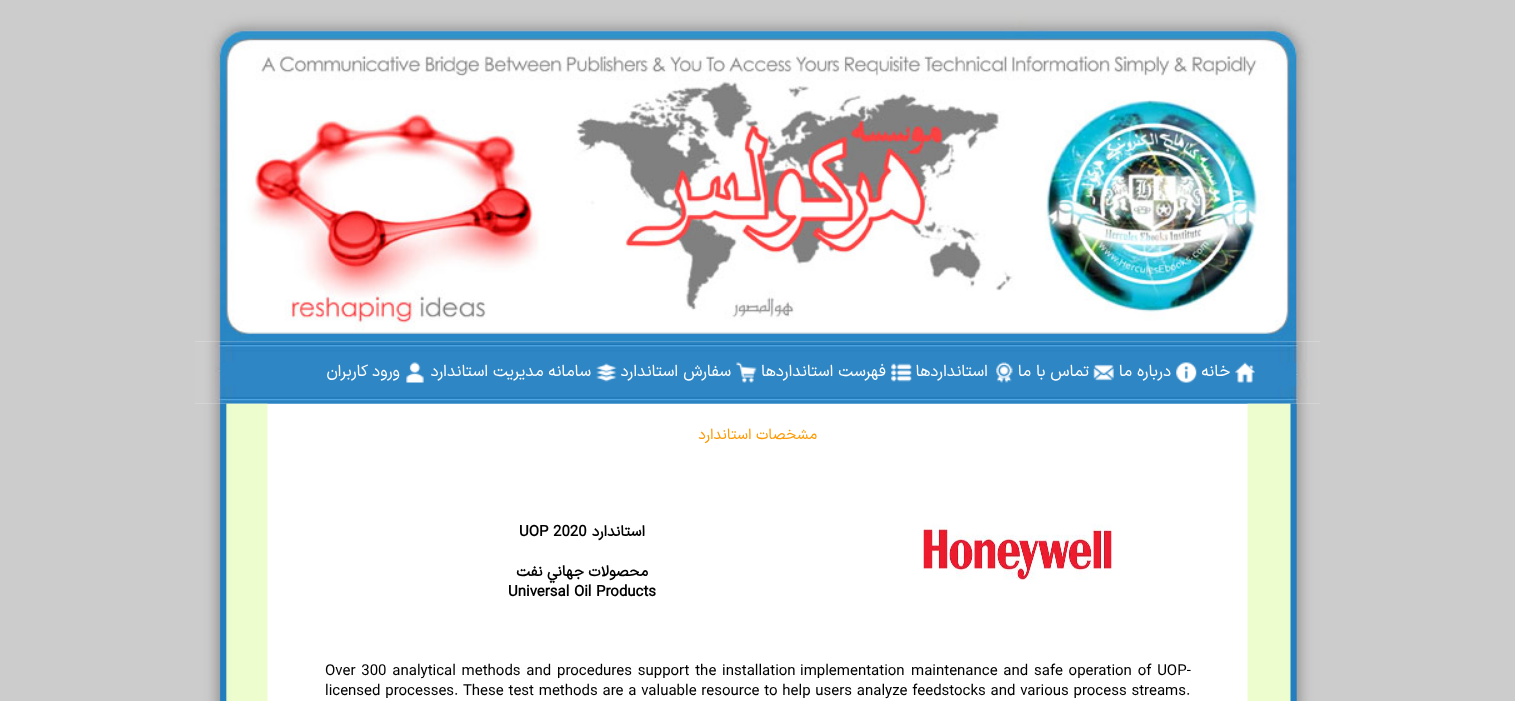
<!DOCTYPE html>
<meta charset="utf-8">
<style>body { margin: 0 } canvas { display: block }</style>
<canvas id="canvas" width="1515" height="701"></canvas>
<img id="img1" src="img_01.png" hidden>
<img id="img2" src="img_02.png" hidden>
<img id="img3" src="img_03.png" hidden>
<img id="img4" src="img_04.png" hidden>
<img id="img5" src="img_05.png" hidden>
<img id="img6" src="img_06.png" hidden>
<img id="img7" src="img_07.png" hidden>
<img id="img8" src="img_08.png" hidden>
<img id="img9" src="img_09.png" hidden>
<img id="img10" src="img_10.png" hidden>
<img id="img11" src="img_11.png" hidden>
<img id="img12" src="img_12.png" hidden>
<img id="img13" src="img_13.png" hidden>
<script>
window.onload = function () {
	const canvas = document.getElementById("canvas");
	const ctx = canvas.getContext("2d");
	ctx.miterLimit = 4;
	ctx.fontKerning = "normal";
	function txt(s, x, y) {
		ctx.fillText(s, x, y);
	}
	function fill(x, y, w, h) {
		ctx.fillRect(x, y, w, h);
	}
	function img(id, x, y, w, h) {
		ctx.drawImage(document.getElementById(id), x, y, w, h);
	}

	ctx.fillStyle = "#CCCCCC";
	fill(0, 0, 1515, 701);
	ctx.fillStyle = "#FFFFFF";
	fill(195, 341, 1125, 360);
	img("img1", 195, 10, 1125, 332);
	img("img2", 195, 341, 1125, 63);
	img("img3", 406, 362, 18, 21);
	img("img4", 596, 363, 21, 19);
	img("img5", 736, 362, 21, 21);
	img("img6", 891, 363, 21, 19);
	img("img7", 996, 362, 17, 21);
	img("img8", 1093, 364, 21, 17);
	img("img9", 1176, 362, 21, 21);
	img("img10", 1235, 362, 20, 21);
	img("img11", 195, 403, 73, 298);
	img("img12", 923, 524, 189, 56);
	img("img13", 1247, 403, 73, 298);
	ctx.direction = "rtl";
	ctx.font = "16.25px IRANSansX";
	txt("ورود کاربران", 400, 376);
	txt("سامانه مدیریت استاندارد", 591, 376);
	txt("سفارش استاندارد", 731, 376);
	txt("فهرست استانداردها", 886, 376);
	txt("استانداردها", 988, 376);
	txt("تماس با ما", 1089, 376);
	txt("درباره ما", 1171, 376);
	txt("خانه", 1230, 376);
	ctx.font = "15px IRANSansX";
	ctx.fillStyle = "#FF9900";
	txt("مشخصات استاندارد", 817, 439);
	ctx.direction = "ltr";
	ctx.font = "bold 15px IRANSansX";
	ctx.fillStyle = "#000000";
	txt("UOP 2020", 519, 536);
	ctx.direction = "rtl";
	txt("استاندارد", 645, 536);
	txt("محصولات جهاني نفت", 648, 576);
	ctx.direction = "ltr";
	txt("Universal Oil Products", 508, 596);
	ctx.wordSpacing = "1.25px";
	ctx.font = "15px IRANSansX";
	txt("Over 300 analytical methods and procedures support the installation", 325, 675);
	ctx.wordSpacing = "0px";
	txt("implementation", 800, 675);
	ctx.wordSpacing = "1.25px";
	txt("maintenance and safe operation of UOP-", 911, 675);
	ctx.wordSpacing = "0.25px";
	txt("licensed processes. These test methods are a valuable resource to help users analyze feedstocks and various process streams.", 325, 695);
};
</script>
